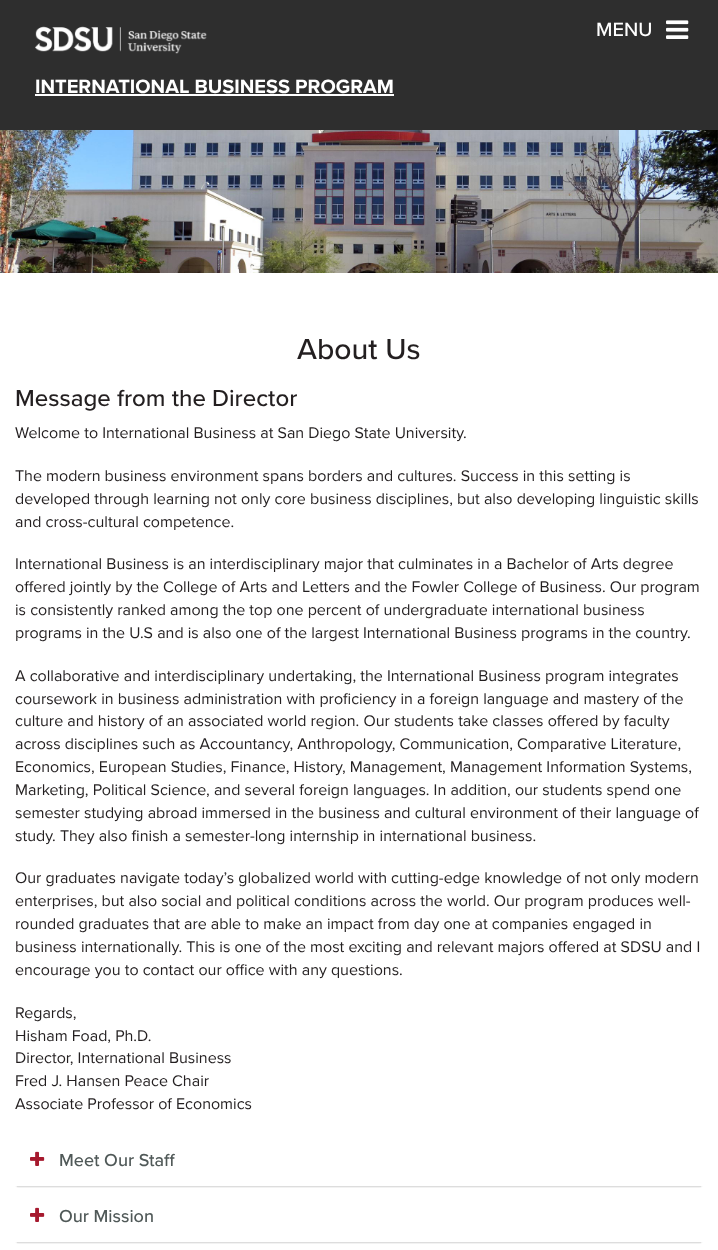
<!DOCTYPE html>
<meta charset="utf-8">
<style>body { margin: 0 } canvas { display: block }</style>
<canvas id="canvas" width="718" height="1250"></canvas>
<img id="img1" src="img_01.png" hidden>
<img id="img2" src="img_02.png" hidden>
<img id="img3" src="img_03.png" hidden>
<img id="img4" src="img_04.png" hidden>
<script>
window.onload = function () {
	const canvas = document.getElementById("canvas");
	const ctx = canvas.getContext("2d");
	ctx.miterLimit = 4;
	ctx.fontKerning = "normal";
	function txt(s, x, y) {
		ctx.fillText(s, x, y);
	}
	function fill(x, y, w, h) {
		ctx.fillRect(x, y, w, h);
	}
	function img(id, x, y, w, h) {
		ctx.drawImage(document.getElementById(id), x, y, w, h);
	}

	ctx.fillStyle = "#FFFFFF";
	fill(0, 0, 718, 1250);
	ctx.fillStyle = "#2E2E2E";
	fill(0, 0, 718, 130);
	img("img1", 666, 20, 23, 19);
	img("img2", 35, 26, 172, 28);
	ctx.fillStyle = "#FFFFFF";
	fill(35, 94, 359, 2);
	img("img3", 0, 130, 718, 143);
	ctx.fillStyle = "rgba(0, 0, 0, 0.05)";
	ctx.filter = "blur(0.5px)";
	ctx.beginPath();
	ctx.roundRect(15, 1137, 688, 51, 4);
	ctx.fill();
	ctx.filter = "none";
	ctx.fillStyle = "#DDDDDD";
	fill(17, 1186, 684, 1);
	ctx.fillStyle = "#FFFFFF";
	ctx.beginPath();
	ctx.roundRect(15, 1136, 688, 50, [3, 3, 0, 0]);
	ctx.fill();
	img("img4", 30, 1151, 15, 15);
	ctx.fillStyle = "rgba(0, 0, 0, 0.05)";
	ctx.filter = "blur(0.5px)";
	ctx.beginPath();
	ctx.roundRect(15, 1193, 688, 51, 4);
	ctx.fill();
	ctx.filter = "none";
	ctx.fillStyle = "#DDDDDD";
	fill(17, 1242, 684, 1);
	ctx.fillStyle = "#FFFFFF";
	ctx.beginPath();
	ctx.roundRect(15, 1192, 688, 50, [3, 3, 0, 0]);
	ctx.fill();
	img("img4", 30, 1207, 15, 15);
	ctx.font = "500 20px Proxima Nova";
	txt("MENU", 596, 36);
	ctx.font = "bold 20px Proxima Nova";
	txt("INTERNATIONAL BUSINESS PROGRAM", 35, 93);
	ctx.font = "500 30px Proxima Nova";
	ctx.fillStyle = "#231F20";
	txt("About Us", 297, 359);
	ctx.font = "500 24px Proxima Nova";
	txt("Message from the Director", 15, 406);
	ctx.font = "16px Proxima Nova";
	txt("Welcome to International Business at San Diego State University.", 15, 438);
	txt("The modern business environment spans borders and cultures. Success in this setting is", 15, 481);
	txt("developed through learning not only core business disciplines, but also developing linguistic skills", 15, 504);
	txt("and cross-cultural competence.", 15, 527);
	txt("International Business is an interdisciplinary major that culminates in a Bachelor of Arts degree", 15, 569);
	txt("offered jointly by the College of Arts and Letters and the Fowler College of Business. Our program", 15, 592);
	txt("is consistently ranked among the top one percent of undergraduate international business", 15, 615);
	txt("programs in the U.S and is also one of the largest International Business programs in the country.", 15, 638);
	txt("A collaborative and interdisciplinary undertaking, the International Business program integrates", 15, 681);
	txt("coursework in business administration with proficiency in a foreign language and mastery of the", 15, 704);
	txt("culture and history of an associated world region. Our students take classes offered by faculty", 15, 726);
	txt("across disciplines such as Accountancy, Anthropology, Communication, Comparative Literature,", 15, 749);
	txt("Economics, European Studies, Finance, History, Management, Management Information Systems,", 15, 772);
	txt("Marketing, Political Science, and several foreign languages. In addition, our students spend one", 15, 795);
	txt("semester studying abroad immersed in the business and cultural environment of their language of", 15, 818);
	txt("study. They also finish a semester-long internship in international business.", 15, 841);
	txt("Our graduates navigate today’s globalized world with cutting-edge knowledge of not only modern", 15, 883);
	txt("enterprises, but also social and political conditions across the world. Our program produces well-", 15, 906);
	txt("rounded graduates that are able to make an impact from day one at companies engaged in", 15, 929);
	txt("business internationally. This is one of the most exciting and relevant majors offered at SDSU and I", 15, 952);
	txt("encourage you to contact our office with any questions.", 15, 975);
	txt("Regards,", 15, 1018);
	txt("Hisham Foad, Ph.D.", 15, 1041);
	txt("Director, International Business", 15, 1063);
	txt("Fred J. Hansen Peace Chair", 15, 1086);
	txt("Associate Professor of Economics", 15, 1109);
	ctx.font = "500 18px Proxima Nova";
	ctx.fillStyle = "#505958";
	txt("Meet Our Staff", 59, 1166);
	txt("Our Mission", 59, 1222);
};
</script>
